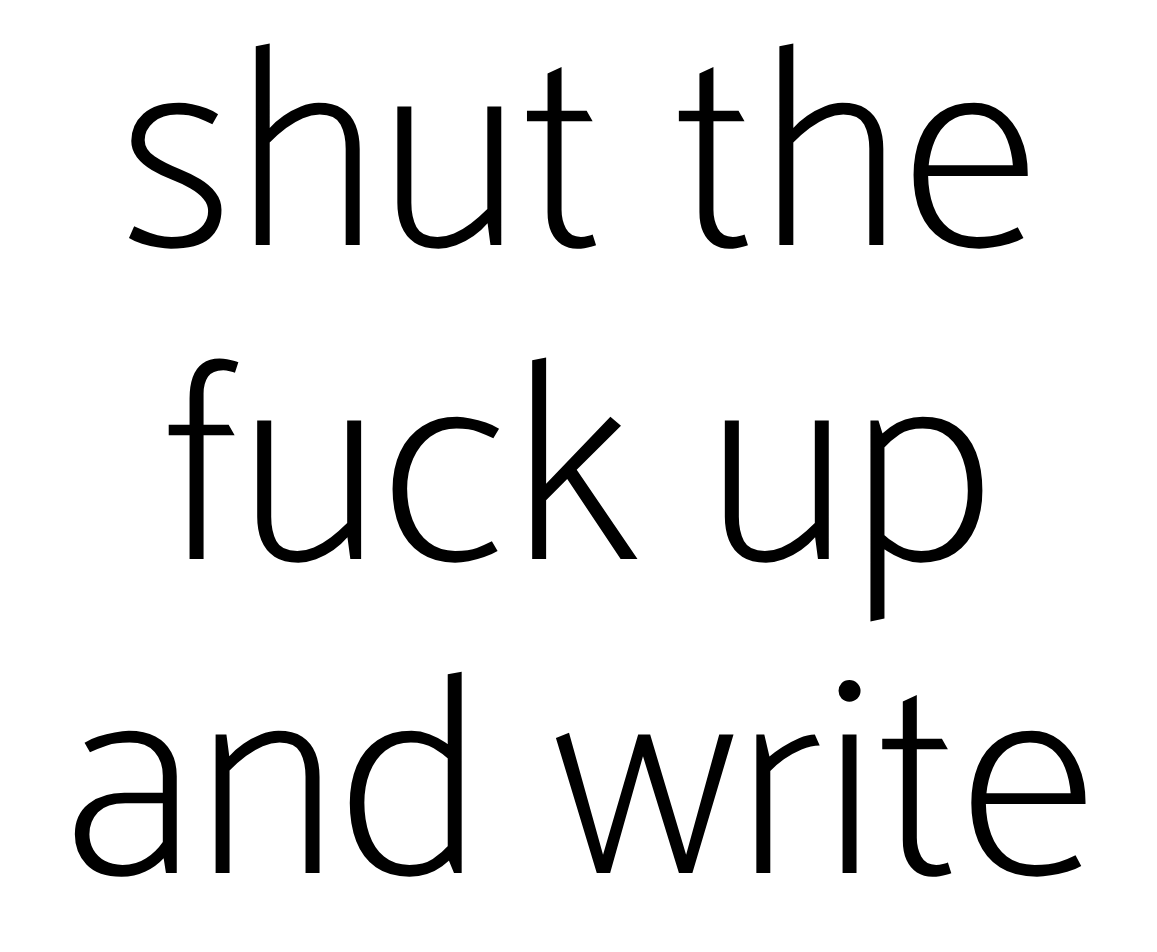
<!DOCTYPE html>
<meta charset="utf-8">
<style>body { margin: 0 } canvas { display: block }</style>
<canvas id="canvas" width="1157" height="952"></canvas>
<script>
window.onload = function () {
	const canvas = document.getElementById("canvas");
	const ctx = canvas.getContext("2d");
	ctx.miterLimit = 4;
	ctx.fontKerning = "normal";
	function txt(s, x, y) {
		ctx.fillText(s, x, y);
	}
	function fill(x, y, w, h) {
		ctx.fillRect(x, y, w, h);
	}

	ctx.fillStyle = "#FFFFFF";
	fill(0, 0, 1157, 952);
	ctx.font = "100 285.5px Catamaran";
	ctx.fillStyle = "#000000";
	txt("shut the", 117, 245);
	txt("fuck up", 163, 559);
	txt("and write", 60, 873);
};
</script>
